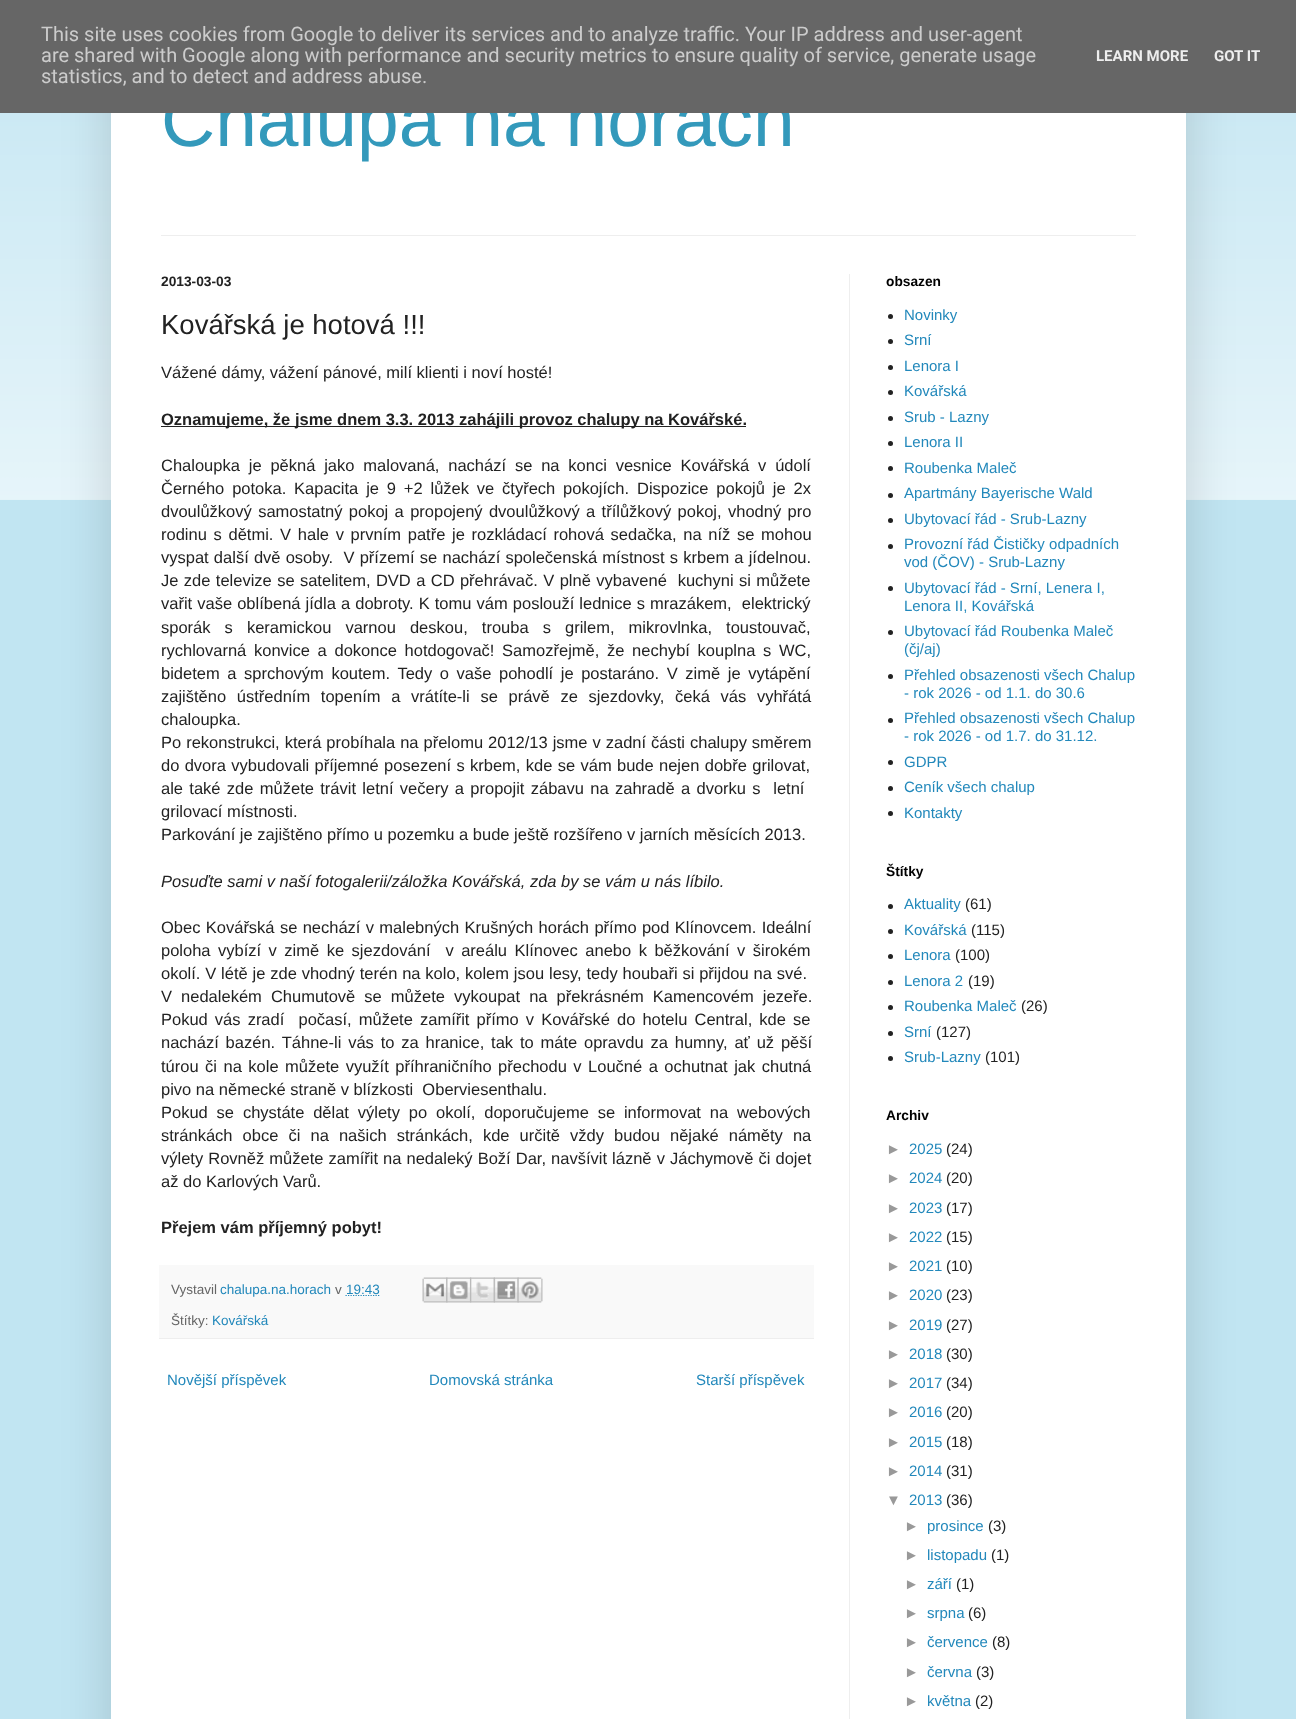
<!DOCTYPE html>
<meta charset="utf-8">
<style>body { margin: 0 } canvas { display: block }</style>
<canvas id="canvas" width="1296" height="1719"></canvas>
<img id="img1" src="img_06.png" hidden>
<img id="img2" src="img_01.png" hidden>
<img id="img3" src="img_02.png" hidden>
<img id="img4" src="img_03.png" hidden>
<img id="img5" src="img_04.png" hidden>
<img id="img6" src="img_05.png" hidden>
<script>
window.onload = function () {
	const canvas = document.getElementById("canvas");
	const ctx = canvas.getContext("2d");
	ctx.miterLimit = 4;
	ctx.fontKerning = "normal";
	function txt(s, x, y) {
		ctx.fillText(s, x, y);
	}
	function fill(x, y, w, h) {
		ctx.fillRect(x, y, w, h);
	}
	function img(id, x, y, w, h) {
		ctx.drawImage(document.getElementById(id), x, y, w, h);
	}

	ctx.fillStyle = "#C1E5F2";
	fill(0, 0, 1296, 1719);
	img("img1", 0, 113, 1296, 387);
	ctx.fillStyle = "rgba(0, 0, 0, 0.15)";
	ctx.filter = "blur(25px)";
	ctx.beginPath();
	ctx.rect(111, 38, 1075, 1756);
	ctx.fill();
	ctx.filter = "none";
	ctx.fillStyle = "#FFFFFF";
	fill(111, 113, 1075, 1606);
	ctx.fillStyle = "#EEEEEE";
	fill(161, 235, 975, 1);
	fill(849, 274, 1, 1445);
	ctx.fillStyle = "#222222";
	fill(161, 426, 585, 1);
	ctx.fillStyle = "#F9F9F9";
	fill(159, 1265, 655, 73);
	ctx.fillStyle = "#EEEEEE";
	fill(159, 1338, 655, 1);
	ctx.beginPath();
	ctx.moveTo(345.5, 1295.5);
	ctx.lineTo(379.5, 1295.5);
	ctx.strokeStyle = "#2288BB";
	ctx.lineWidth = 1.2;
	ctx.setLineDash([1.25, 1.25]);
	ctx.stroke();
	img("img2", 422, 1277, 26, 26);
	img("img3", 446, 1277, 26, 26);
	img("img4", 470, 1277, 25, 26);
	img("img5", 493, 1277, 26, 26);
	img("img6", 517, 1277, 26, 26);
	ctx.fillStyle = "#222222";
	ctx.beginPath();
	ctx.arc(890.5, 316.5, 2.5, 0, Math.PI * 2);
	ctx.fill();
	ctx.beginPath();
	ctx.arc(890.5, 341.5, 2.5, 0, Math.PI * 2);
	ctx.fill();
	ctx.beginPath();
	ctx.arc(890.5, 367.5, 2.5, 0, Math.PI * 2);
	ctx.fill();
	ctx.beginPath();
	ctx.arc(890.5, 392.5, 2.5, 0, Math.PI * 2);
	ctx.fill();
	ctx.beginPath();
	ctx.arc(890.5, 418.5, 2.5, 0, Math.PI * 2);
	ctx.fill();
	ctx.beginPath();
	ctx.arc(890.5, 443.5, 2.5, 0, Math.PI * 2);
	ctx.fill();
	ctx.beginPath();
	ctx.arc(890.5, 468.5, 2.5, 0, Math.PI * 2);
	ctx.fill();
	ctx.beginPath();
	ctx.arc(890.5, 495.5, 2.5, 0, Math.PI * 2);
	ctx.fill();
	ctx.beginPath();
	ctx.arc(890.5, 520.5, 2.5, 0, Math.PI * 2);
	ctx.fill();
	ctx.beginPath();
	ctx.arc(890.5, 546.5, 2.5, 0, Math.PI * 2);
	ctx.fill();
	ctx.beginPath();
	ctx.arc(890.5, 588.5, 2.5, 0, Math.PI * 2);
	ctx.fill();
	ctx.beginPath();
	ctx.arc(890.5, 632.5, 2.5, 0, Math.PI * 2);
	ctx.fill();
	ctx.beginPath();
	ctx.arc(890.5, 676.5, 2.5, 0, Math.PI * 2);
	ctx.fill();
	ctx.beginPath();
	ctx.arc(890.5, 720.5, 2.5, 0, Math.PI * 2);
	ctx.fill();
	ctx.beginPath();
	ctx.arc(890.5, 762.5, 2.5, 0, Math.PI * 2);
	ctx.fill();
	ctx.beginPath();
	ctx.arc(890.5, 788.5, 2.5, 0, Math.PI * 2);
	ctx.fill();
	ctx.beginPath();
	ctx.arc(890.5, 813.5, 2.5, 0, Math.PI * 2);
	ctx.fill();
	ctx.beginPath();
	ctx.arc(890.5, 906.5, 2.5, 0, Math.PI * 2);
	ctx.fill();
	ctx.beginPath();
	ctx.arc(890.5, 931.5, 2.5, 0, Math.PI * 2);
	ctx.fill();
	ctx.beginPath();
	ctx.arc(890.5, 956.5, 2.5, 0, Math.PI * 2);
	ctx.fill();
	ctx.beginPath();
	ctx.arc(890.5, 982.5, 2.5, 0, Math.PI * 2);
	ctx.fill();
	ctx.beginPath();
	ctx.arc(890.5, 1007.5, 2.5, 0, Math.PI * 2);
	ctx.fill();
	ctx.beginPath();
	ctx.arc(890.5, 1033.5, 2.5, 0, Math.PI * 2);
	ctx.fill();
	ctx.beginPath();
	ctx.arc(890.5, 1058.5, 2.5, 0, Math.PI * 2);
	ctx.fill();
	ctx.font = "75px Liberation Sans";
	ctx.fillStyle = "#3399BB";
	txt("Chalupa na horách", 161, 146);
	ctx.fillStyle = "#666666";
	fill(0, 0, 1296, 113);
	ctx.font = "bold 15px Roboto";
	ctx.fillStyle = "#EEEEEE";
	txt("GOT IT", 1214, 61);
	txt("LEARN MORE", 1096, 61);
	ctx.font = "20px Roboto";
	ctx.fillStyle = "#CCCCCC";
	txt("statistics, and to detect and address abuse.", 41, 83);
	txt("are shared with Google along with performance and security metrics to ensure quality of service, generate usage", 41, 62);
	txt("This site uses cookies from Google to deliver its services and to analyze traffic. Your IP address and user-agent", 41, 41);
	ctx.font = "bold 13.75px Liberation Sans";
	ctx.fillStyle = "#222222";
	txt("2013-03-03", 161, 286);
	ctx.font = "27.5px Liberation Sans";
	txt("Kovářská je hotová !!!", 161, 334);
	ctx.font = "16.5px Liberation Sans";
	txt("Vážené dámy, vážení pánové, milí klienti i noví hosté!", 161, 378);
	ctx.font = "bold 16.5px Liberation Sans";
	txt("Oznamujeme, že jsme dnem 3.3. 2013 zahájili provoz chalupy na Kovářské.", 161, 425);
	ctx.wordSpacing = "4.25px";
	ctx.font = "16.5px Liberation Sans";
	txt("Chaloupka je pěkná jako malovaná, nachází se na konci vesnice Kovářská v údolí", 161, 471);
	ctx.wordSpacing = "3.25px";
	txt("Černého potoka. Kapacita je 9 +2 lůžek ve čtyřech pokojích. Dispozice pokojů je 2x", 161, 494);
	ctx.wordSpacing = "1.75px";
	txt("dvoulůžkový samostatný pokoj a propojený dvoulůžkový a třílůžkový pokoj, vhodný pro", 161, 517);
	ctx.wordSpacing = "2.1px";
	txt("rodinu s dětmi. V hale v prvním patře je rozkládací rohová sedačka, na níž se mohou", 161, 540);
	ctx.wordSpacing = "0.6px";
	txt("vyspat další dvě osoby.  V přízemí se nachází společenská místnost s krbem a jídelnou.", 161, 563);
	ctx.wordSpacing = "0.8px";
	txt("Je zde televize se satelitem, DVD a CD přehrávač. V plně vybavené  kuchyni si můžete", 161, 586);
	ctx.wordSpacing = "0.5px";
	txt("vařit vaše oblíbená jídla a dobroty. K tomu vám poslouží lednice s mrazákem,  elektrický", 161, 609);
	ctx.wordSpacing = "9.5px";
	txt("sporák s keramickou varnou deskou, trouba s grilem, mikrovlnka, toustouvač,", 161, 633);
	ctx.wordSpacing = "3.1px";
	txt("rychlovarná konvice a dokonce hotdogovač! Samozřejmě, že nechybí kouplna s WC,", 161, 656);
	ctx.wordSpacing = "3px";
	txt("bidetem a sprchovým koutem. Tedy o vaše pohodlí je postaráno. V zimě je vytápění", 161, 679);
	ctx.wordSpacing = "6.1px";
	txt("zajištěno ústředním topením a vrátíte-li se právě ze sjezdovky, čeká vás vyhřátá", 161, 702);
	ctx.wordSpacing = "0px";
	txt("chaloupka.", 161, 725);
	ctx.wordSpacing = "0.4px";
	txt("Po rekonstrukci, která probíhala na přelomu 2012/13 jsme v zadní části chalupy směrem", 161, 748);
	ctx.wordSpacing = "0.75px";
	txt("do dvora vybudovali příjemné posezení s krbem, kde se vám bude nejen dobře grilovat,", 161, 771);
	ctx.wordSpacing = "1.75px";
	txt("ale také zde můžete trávit letní večery a propojit zábavu na zahradě a dvorku s  letní", 161, 794);
	ctx.wordSpacing = "0px";
	txt("grilovací místnosti.", 161, 817);
	txt("Parkování je zajištěno přímo u pozemku a bude ještě rozšířeno v jarních měsících 2013.", 161, 840);
	ctx.font = "italic 16.5px Liberation Sans";
	txt("Posuďte sami v naší fotogalerii/záložka Kovářská, zda by se vám u nás líbilo.", 161, 887);
	ctx.wordSpacing = "0.75px";
	ctx.font = "16.5px Liberation Sans";
	txt("Obec Kovářská se nechází v malebných Krušných horách přímo pod Klínovcem. Ideální", 161, 933);
	ctx.wordSpacing = "2.9px";
	txt("poloha vybízí v zimě ke sjezdování  v areálu Klínovec anebo k běžkování v širokém", 161, 956);
	ctx.wordSpacing = "0.25px";
	txt("okolí. V létě je zde vhodný terén na kolo, kolem jsou lesy, tedy houbaři si přijdou na své.", 161, 979);
	ctx.wordSpacing = "4.5px";
	txt("V nedalekém Chumutově se můžete vykoupat na překrásném Kamencovém jezeře.", 161, 1002);
	ctx.wordSpacing = "2.5px";
	txt("Pokud vás zradí  počasí, můžete zamířit přímo v Kovářské do hotelu Central, kde se", 161, 1025);
	ctx.wordSpacing = "2.25px";
	txt("nachází bazén. Táhne-li vás to za hranice, tak to máte opravdu za humny, ať už pěší", 161, 1048);
	ctx.wordSpacing = "1.9px";
	txt("túrou či na kole můžete využít příhraničního přechodu v Loučné a ochutnat jak chutná", 161, 1072);
	ctx.wordSpacing = "0px";
	txt("pivo na německé straně v blízkosti  Oberviesenthalu.", 161, 1095);
	ctx.wordSpacing = "4.25px";
	txt("Pokud se chystáte dělat výlety po okolí, doporučujeme se informovat na webových", 161, 1118);
	ctx.wordSpacing = "5.5px";
	txt("stránkách obce či na našich stránkách, kde určitě vždy budou nějaké náměty na", 161, 1141);
	ctx.wordSpacing = "0.5px";
	txt("výlety Rovněž můžete zamířit na nedaleký Boží Dar, navšívit lázně v Jáchymově či dojet", 161, 1164);
	ctx.wordSpacing = "0px";
	txt("až do Karlových Varů.", 161, 1187);
	ctx.font = "bold 16.5px Liberation Sans";
	txt("Přejem vám příjemný pobyt!", 161, 1233);
	ctx.font = "13.5px Liberation Sans";
	ctx.fillStyle = "#666666";
	txt("Vystavil", 171, 1294);
	ctx.fillStyle = "#2288BB";
	txt("chalupa.na.horach", 220, 1294);
	ctx.fillStyle = "#666666";
	txt("v", 335, 1294);
	ctx.fillStyle = "#2288BB";
	txt("19:43", 346, 1294);
	ctx.fillStyle = "#666666";
	txt("Štítky:", 171, 1325);
	ctx.fillStyle = "#2288BB";
	txt("Kovářská", 212, 1325);
	ctx.font = "15px Liberation Sans";
	txt("Novější příspěvek", 167, 1385);
	txt("Domovská stránka", 429, 1385);
	txt("Starší příspěvek", 696, 1385);
	ctx.font = "bold 13.75px Liberation Sans";
	ctx.fillStyle = "#000000";
	txt("obsazen", 886, 286);
	ctx.font = "15px Liberation Sans";
	ctx.fillStyle = "#2288BB";
	txt("Novinky", 904, 320);
	txt("Srní", 904, 345);
	txt("Lenora I", 904, 371);
	txt("Kovářská", 904, 396);
	txt("Srub - Lazny", 904, 422);
	txt("Lenora II", 904, 447);
	txt("Roubenka Maleč", 904, 473);
	txt("Apartmány Bayerische Wald", 904, 498);
	txt("Ubytovací řád - Srub-Lazny", 904, 524);
	txt("Provozní řád Čističky odpadních", 904, 549);
	txt("vod (ČOV) - Srub-Lazny", 904, 567);
	txt("Ubytovací řád - Srní, Lenera I,", 904, 593);
	txt("Lenora II, Kovářská", 904, 611);
	txt("Ubytovací řád Roubenka Maleč", 904, 636);
	txt("(čj/aj)", 904, 654);
	txt("Přehled obsazenosti všech Chalup", 904, 680);
	txt("- rok 2026 - od 1.1. do 30.6", 904, 698);
	txt("Přehled obsazenosti všech Chalup", 904, 723);
	txt("- rok 2026 - od 1.7. do 31.12.", 904, 741);
	txt("GDPR", 904, 767);
	txt("Ceník všech chalup", 904, 792);
	txt("Kontakty", 904, 818);
	ctx.font = "bold 13.75px Liberation Sans";
	ctx.fillStyle = "#000000";
	txt("Štítky", 886, 876);
	ctx.font = "15px Liberation Sans";
	ctx.fillStyle = "#2288BB";
	txt("Aktuality", 904, 909);
	ctx.fillStyle = "#222222";
	txt("(61)", 965, 909);
	ctx.fillStyle = "#2288BB";
	txt("Kovářská", 904, 935);
	ctx.fillStyle = "#222222";
	txt("(115)", 971, 935);
	ctx.fillStyle = "#2288BB";
	txt("Lenora", 904, 960);
	ctx.fillStyle = "#222222";
	txt("(100)", 955, 960);
	ctx.fillStyle = "#2288BB";
	txt("Lenora 2", 904, 986);
	ctx.fillStyle = "#222222";
	txt("(19)", 968, 986);
	ctx.fillStyle = "#2288BB";
	txt("Roubenka Maleč", 904, 1011);
	ctx.fillStyle = "#222222";
	txt("(26)", 1021, 1011);
	ctx.fillStyle = "#2288BB";
	txt("Srní", 904, 1037);
	ctx.fillStyle = "#222222";
	txt("(127)", 936, 1037);
	ctx.fillStyle = "#2288BB";
	txt("Srub-Lazny", 904, 1062);
	ctx.fillStyle = "#222222";
	txt("(101)", 985, 1062);
	ctx.font = "bold 13.75px Liberation Sans";
	ctx.fillStyle = "#000000";
	txt("Archiv", 886, 1120);
	ctx.font = "15px Liberation Sans";
	ctx.fillStyle = "#999999";
	txt("►", 886, 1154);
	ctx.fillStyle = "#2288BB";
	txt("2025", 909, 1154);
	ctx.fillStyle = "#222222";
	txt("(24)", 946, 1154);
	ctx.fillStyle = "#999999";
	txt("►", 886, 1183);
	ctx.fillStyle = "#2288BB";
	txt("2024", 909, 1183);
	ctx.fillStyle = "#222222";
	txt("(20)", 946, 1183);
	ctx.fillStyle = "#999999";
	txt("►", 886, 1213);
	ctx.fillStyle = "#2288BB";
	txt("2023", 909, 1213);
	ctx.fillStyle = "#222222";
	txt("(17)", 946, 1213);
	ctx.fillStyle = "#999999";
	txt("►", 886, 1242);
	ctx.fillStyle = "#2288BB";
	txt("2022", 909, 1242);
	ctx.fillStyle = "#222222";
	txt("(15)", 946, 1242);
	ctx.fillStyle = "#999999";
	txt("►", 886, 1271);
	ctx.fillStyle = "#2288BB";
	txt("2021", 909, 1271);
	ctx.fillStyle = "#222222";
	txt("(10)", 946, 1271);
	ctx.fillStyle = "#999999";
	txt("►", 886, 1300);
	ctx.fillStyle = "#2288BB";
	txt("2020", 909, 1300);
	ctx.fillStyle = "#222222";
	txt("(23)", 946, 1300);
	ctx.fillStyle = "#999999";
	txt("►", 886, 1330);
	ctx.fillStyle = "#2288BB";
	txt("2019", 909, 1330);
	ctx.fillStyle = "#222222";
	txt("(27)", 946, 1330);
	ctx.fillStyle = "#999999";
	txt("►", 886, 1359);
	ctx.fillStyle = "#2288BB";
	txt("2018", 909, 1359);
	ctx.fillStyle = "#222222";
	txt("(30)", 946, 1359);
	ctx.fillStyle = "#999999";
	txt("►", 886, 1388);
	ctx.fillStyle = "#2288BB";
	txt("2017", 909, 1388);
	ctx.fillStyle = "#222222";
	txt("(34)", 946, 1388);
	ctx.fillStyle = "#999999";
	txt("►", 886, 1417);
	ctx.fillStyle = "#2288BB";
	txt("2016", 909, 1417);
	ctx.fillStyle = "#222222";
	txt("(20)", 946, 1417);
	ctx.fillStyle = "#999999";
	txt("►", 886, 1447);
	ctx.fillStyle = "#2288BB";
	txt("2015", 909, 1447);
	ctx.fillStyle = "#222222";
	txt("(18)", 946, 1447);
	ctx.fillStyle = "#999999";
	txt("►", 886, 1476);
	ctx.fillStyle = "#2288BB";
	txt("2014", 909, 1476);
	ctx.fillStyle = "#222222";
	txt("(31)", 946, 1476);
	ctx.fillStyle = "#999999";
	txt("▼", 886, 1505);
	ctx.fillStyle = "#2288BB";
	txt("2013", 909, 1505);
	ctx.fillStyle = "#222222";
	txt("(36)", 946, 1505);
	ctx.fillStyle = "#999999";
	txt("►", 904, 1531);
	ctx.fillStyle = "#2288BB";
	txt("prosince", 927, 1531);
	ctx.fillStyle = "#222222";
	txt("(3)", 988, 1531);
	ctx.fillStyle = "#999999";
	txt("►", 904, 1560);
	ctx.fillStyle = "#2288BB";
	txt("listopadu", 927, 1560);
	ctx.fillStyle = "#222222";
	txt("(1)", 991, 1560);
	ctx.fillStyle = "#999999";
	txt("►", 904, 1589);
	ctx.fillStyle = "#2288BB";
	txt("září", 927, 1589);
	ctx.fillStyle = "#222222";
	txt("(1)", 956, 1589);
	ctx.fillStyle = "#999999";
	txt("►", 904, 1618);
	ctx.fillStyle = "#2288BB";
	txt("srpna", 927, 1618);
	ctx.fillStyle = "#222222";
	txt("(6)", 968, 1618);
	ctx.fillStyle = "#999999";
	txt("►", 904, 1647);
	ctx.fillStyle = "#2288BB";
	txt("července", 927, 1647);
	ctx.fillStyle = "#222222";
	txt("(8)", 992, 1647);
	ctx.fillStyle = "#999999";
	txt("►", 904, 1677);
	ctx.fillStyle = "#2288BB";
	txt("června", 927, 1677);
	ctx.fillStyle = "#222222";
	txt("(3)", 976, 1677);
	ctx.fillStyle = "#999999";
	txt("►", 904, 1706);
	ctx.fillStyle = "#2288BB";
	txt("května", 927, 1706);
	ctx.fillStyle = "#222222";
	txt("(2)", 975, 1706);
};
</script>
